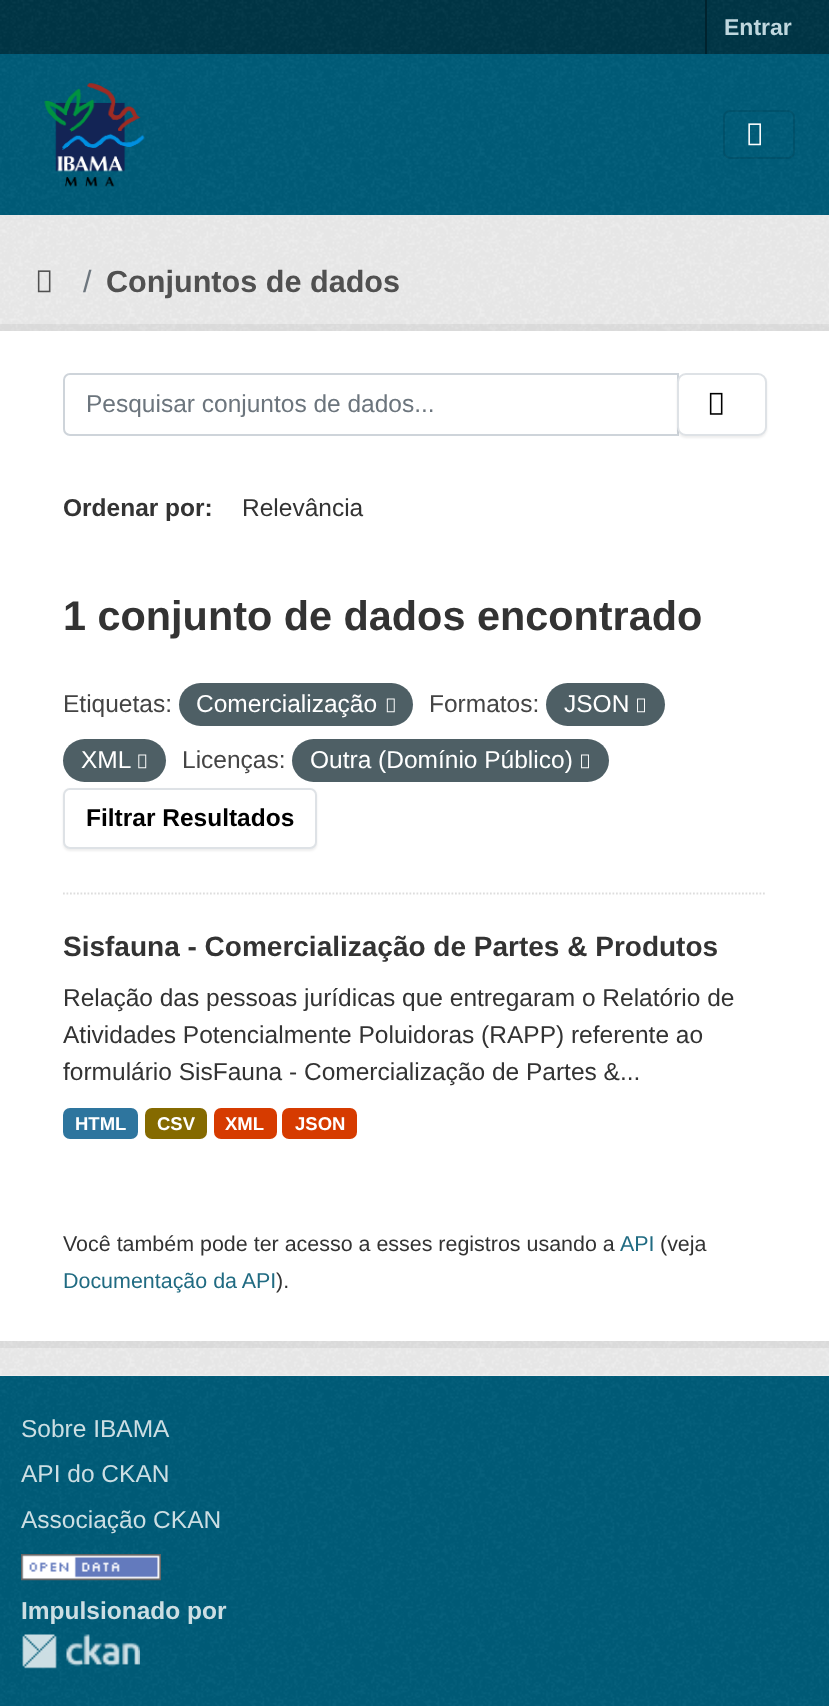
<!DOCTYPE html>
<meta charset="utf-8">
<style>body { margin: 0 } canvas { display: block }</style>
<canvas id="canvas" width="829" height="1706"></canvas>
<img id="img1" src="img_01.png" hidden>
<img id="img2" src="img_02.png" hidden>
<img id="img3" src="img_03.png" hidden>
<img id="img4" src="img_04.png" hidden>
<img id="img5" src="img_05.png" hidden>
<img id="img6" src="img_06.png" hidden>
<img id="img7" src="img_07.png" hidden>
<img id="img8" src="img_08.png" hidden>
<img id="img9" src="img_09.png" hidden>
<img id="img10" src="img_10.png" hidden>
<img id="img11" src="img_11.png" hidden>
<img id="img12" src="img_12.png" hidden>
<img id="img13" src="img_13.png" hidden>
<script>
window.onload = function () {
	const canvas = document.getElementById("canvas");
	const ctx = canvas.getContext("2d");
	ctx.miterLimit = 4;
	ctx.fontKerning = "normal";
	function txt(s, x, y) {
		ctx.fillText(s, x, y);
	}
	function fill(x, y, w, h) {
		ctx.fillRect(x, y, w, h);
	}
	function round(x, y, w, h, r) {
		ctx.beginPath();
		ctx.roundRect(x, y, w, h, r);
		ctx.fill();
	}
	function img(id, x, y, w, h) {
		ctx.drawImage(document.getElementById(id), x, y, w, h);
	}

	ctx.fillStyle = "#003647";
	fill(0, 0, 829, 1706);
	img("img1", 0, 0, 829, 54);
	ctx.fillStyle = "#00232E";
	fill(705, 0, 2, 54);
	ctx.fillStyle = "#005D7A";
	fill(0, 54, 829, 161);
	img("img2", 0, 54, 829, 161);
	img("img3", 44, 83, 101, 104);
	ctx.beginPath();
	ctx.roundRect(724, 111, 70, 47, 6);
	ctx.strokeStyle = "rgba(0, 0, 0, 0.1)";
	ctx.lineWidth = 2;
	ctx.stroke();
	img("img4", 748, 123, 13, 23);
	ctx.fillStyle = "#EEEEEE";
	fill(0, 215, 829, 1161);
	img("img5", 0, 215, 829, 1160);
	img("img6", 37, 270, 14, 23);
	ctx.strokeStyle = "rgba(0, 0, 0, 0.05)";
	ctx.lineWidth = 7;
	ctx.strokeRect(-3.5, 327.5, 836, 1017);
	ctx.fillStyle = "#FFFFFF";
	fill(0, 331, 829, 1010);
	ctx.beginPath();
	ctx.moveTo(63, 893.5);
	ctx.lineTo(766.5, 893.5);
	ctx.strokeStyle = "#DDDDDD";
	ctx.lineWidth = 1.8;
	ctx.setLineDash([1.75, 1.75]);
	ctx.stroke();
	ctx.beginPath();
	ctx.roundRect(64, 374, 614, 61, [6, 0, 0, 6]);
	ctx.strokeStyle = "#CED4DA";
	ctx.lineWidth = 2;
	ctx.setLineDash([]);
	ctx.stroke();
	ctx.fillStyle = "rgba(0, 0, 0, 0.07)";
	ctx.filter = "blur(1px)";
	ctx.beginPath();
	ctx.roundRect(677, 375, 90, 63, 9);
	ctx.fill();
	ctx.filter = "none";
	ctx.fillStyle = "#FFFFFF";
	ctx.beginPath();
	ctx.roundRect(678, 374, 88, 61, 8);
	ctx.fill();
	ctx.strokeStyle = "#DEE2E6";
	ctx.stroke();
	img("img7", 709, 392, 14, 23);
	ctx.fillStyle = "#4E5F65";
	round(179, 683, 234, 43, 21.5);
	img("img8", 386, 698, 9, 15);
	round(546, 683, 119, 43, 21.5);
	img("img9", 637, 698, 8, 15);
	round(63, 739, 103, 43, 21.5);
	img("img10", 138, 754, 9, 15);
	round(292, 739, 317, 43, 21.5);
	img("img9", 581, 754, 8, 15);
	ctx.fillStyle = "rgba(0, 0, 0, 0.07)";
	ctx.filter = "blur(1px)";
	ctx.beginPath();
	ctx.roundRect(63, 789, 254, 62, 7);
	ctx.fill();
	ctx.filter = "none";
	ctx.fillStyle = "#FFFFFF";
	ctx.beginPath();
	ctx.roundRect(64, 789, 252, 59, 6);
	ctx.fill();
	ctx.stroke();
	ctx.fillStyle = "#2E759E";
	round(63, 1108, 75, 31, 7);
	ctx.fillStyle = "#856A00";
	round(145, 1108, 62, 31, 7);
	ctx.fillStyle = "#D63B00";
	round(214, 1108, 63, 31, 7);
	round(282, 1108, 75, 31, 7);
	ctx.fillStyle = "#005D7A";
	fill(0, 1376, 829, 330);
	img("img11", 0, 1376, 829, 330);
	img("img12", 21, 1554, 140, 27);
	img("img13", 22, 1634, 118, 35);
	ctx.font = "bold 23px Liberation Sans";
	ctx.fillStyle = "#BFD7DE";
	txt("Entrar", 724, 35);
	ctx.font = "30.6px Liberation Sans";
	ctx.fillStyle = "#6C757D";
	txt("/", 83, 292);
	ctx.font = "bold 30.6px Liberation Sans";
	ctx.fillStyle = "#505050";
	txt("Conjuntos de dados", 106, 292);
	ctx.font = "24.5px Liberation Sans";
	ctx.fillStyle = "#6C757D";
	txt("Pesquisar conjuntos de dados...", 86, 412);
	ctx.font = "bold 24.5px Liberation Sans";
	ctx.fillStyle = "#333333";
	txt("Ordenar por:", 63, 516);
	ctx.font = "24.5px Liberation Sans";
	txt("Relevância", 242, 516);
	ctx.font = "bold 41.4px Liberation Sans";
	txt("1 conjunto de dados encontrado", 63, 630);
	ctx.font = "24.5px Liberation Sans";
	ctx.fillStyle = "#444444";
	txt("Etiquetas:", 63, 712);
	ctx.fillStyle = "#FFFFFF";
	txt("Comercialização", 196, 712);
	ctx.fillStyle = "#444444";
	txt("Formatos:", 429, 712);
	ctx.fillStyle = "#FFFFFF";
	txt("JSON", 564, 712);
	txt("XML", 81, 768);
	ctx.fillStyle = "#444444";
	txt("Licenças:", 182, 768);
	ctx.fillStyle = "#FFFFFF";
	txt("Outra (Domínio Público)", 310, 768);
	ctx.font = "bold 24.5px Liberation Sans";
	ctx.fillStyle = "#000000";
	txt("Filtrar Resultados", 86, 826);
	ctx.font = "bold 28px Liberation Sans";
	ctx.fillStyle = "#333333";
	txt("Sisfauna - Comercialização de Partes & Produtos", 63, 956);
	ctx.font = "24.5px Liberation Sans";
	txt("Relação das pessoas jurídicas que entregaram o Relatório de", 63, 1006);
	txt("Atividades Potencialmente Poluidoras (RAPP) referente ao", 63, 1043);
	txt("formulário SisFauna - Comercialização de Partes &...", 63, 1080);
	ctx.font = "bold 18.5px Liberation Sans";
	ctx.fillStyle = "#FFFFFF";
	txt("HTML", 75, 1130);
	txt("CSV", 157, 1130);
	txt("XML", 225, 1130);
	txt("JSON", 295, 1130);
	ctx.font = "21.45px Liberation Sans";
	ctx.fillStyle = "#333333";
	txt("Você também pode ter acesso a esses registros usando a", 63, 1251);
	ctx.fillStyle = "#206B82";
	txt("API", 620, 1251);
	ctx.fillStyle = "#333333";
	txt("(veja", 660, 1251);
	ctx.fillStyle = "#206B82";
	txt("Documentação da API", 63, 1288);
	ctx.fillStyle = "#333333";
	txt(").", 276, 1288);
	ctx.font = "24.5px Liberation Sans";
	ctx.fillStyle = "#CCDEE3";
	txt("Sobre IBAMA", 21, 1437);
	txt("API do CKAN", 21, 1482);
	txt("Associação CKAN", 21, 1528);
	ctx.font = "bold 24.5px Liberation Sans";
	txt("Impulsionado por", 21, 1619);
};
</script>
